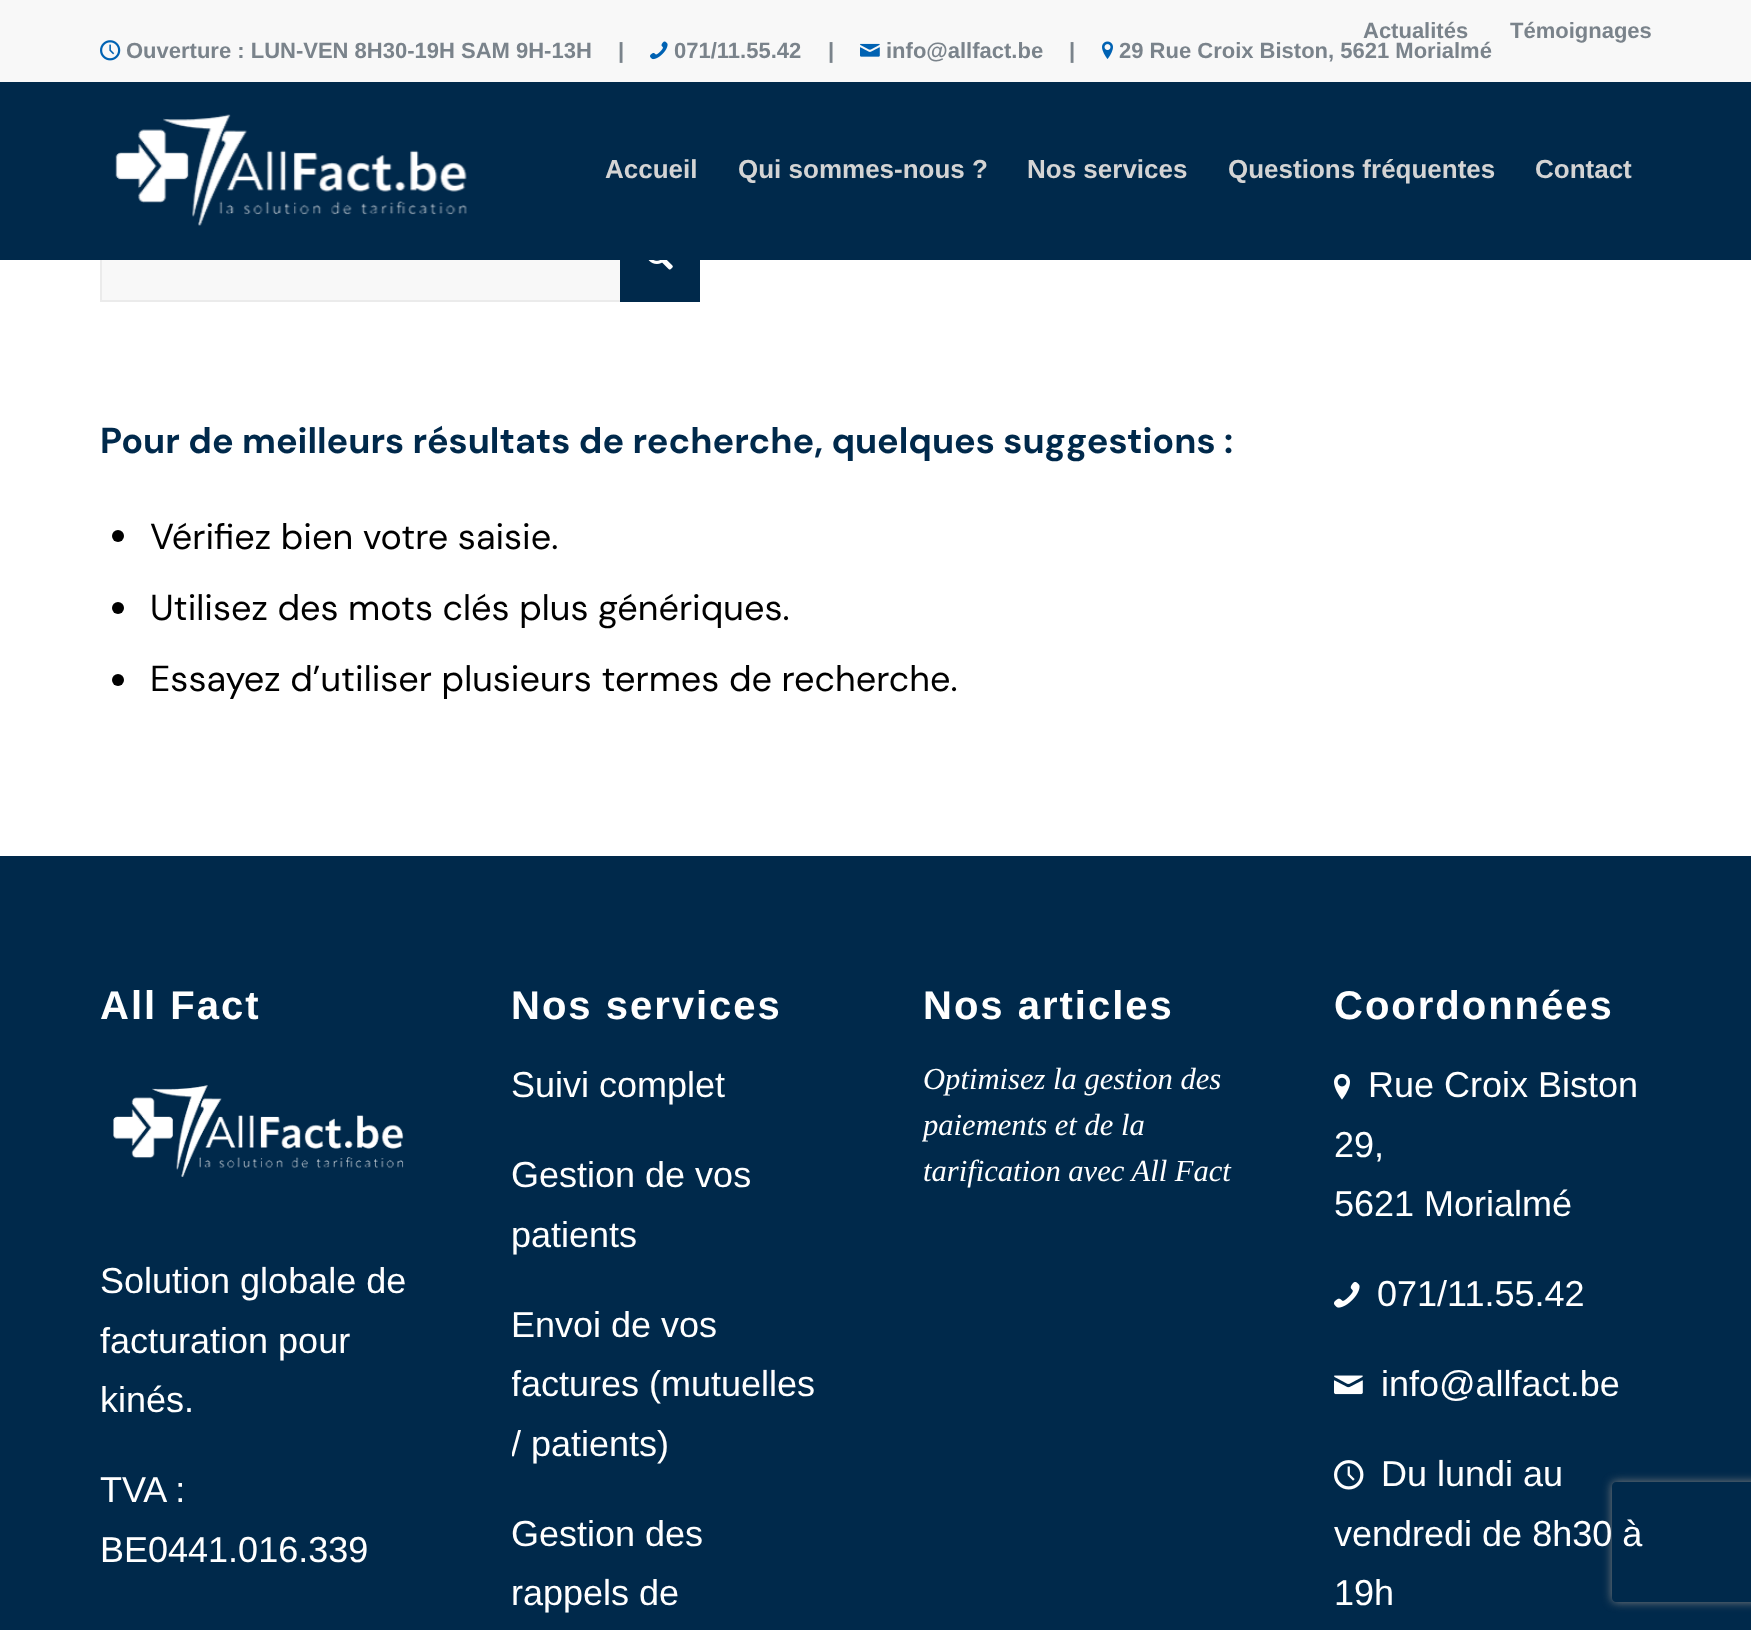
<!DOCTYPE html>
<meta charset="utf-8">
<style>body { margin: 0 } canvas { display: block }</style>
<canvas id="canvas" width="1751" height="1630"></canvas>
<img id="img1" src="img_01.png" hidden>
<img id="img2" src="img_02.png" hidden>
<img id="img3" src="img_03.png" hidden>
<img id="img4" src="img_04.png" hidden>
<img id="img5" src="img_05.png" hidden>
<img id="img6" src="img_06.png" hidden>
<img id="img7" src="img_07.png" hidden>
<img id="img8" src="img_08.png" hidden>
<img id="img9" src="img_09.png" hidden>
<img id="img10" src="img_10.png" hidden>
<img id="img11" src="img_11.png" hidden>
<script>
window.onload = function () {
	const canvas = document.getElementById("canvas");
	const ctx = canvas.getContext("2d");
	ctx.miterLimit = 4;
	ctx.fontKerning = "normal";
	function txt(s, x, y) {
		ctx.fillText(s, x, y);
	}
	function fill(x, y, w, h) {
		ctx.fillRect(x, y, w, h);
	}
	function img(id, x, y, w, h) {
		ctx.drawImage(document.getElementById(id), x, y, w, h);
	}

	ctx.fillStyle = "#00294B";
	fill(0, 0, 1751, 1630);
	ctx.fillStyle = "#F8F8F8";
	fill(0, 0, 1751, 82);
	img("img1", 100, 40, 21, 21);
	img("img2", 650, 41, 18, 19);
	img("img3", 860, 43, 20, 14);
	img("img4", 1102, 41, 11, 18);
	ctx.fillStyle = "#FFFFFF";
	fill(0, 260, 1751, 596);
	ctx.fillStyle = "#F8F8F8";
	fill(102, 260, 518, 40);
	ctx.strokeStyle = "#EBEBEB";
	ctx.lineWidth = 2;
	ctx.strokeRect(101, 213, 598, 88);
	ctx.fillStyle = "#00294B";
	fill(100, 212, 600, 48);
	img("img5", 115, 114, 352, 112);
	fill(620, 260, 80, 42);
	img("img6", 648, 260, 25, 10);
	ctx.fillStyle = "#000000";
	ctx.beginPath();
	ctx.arc(118, 536, 6, 0, Math.PI * 2);
	ctx.fill();
	ctx.beginPath();
	ctx.arc(118, 608, 6, 0, Math.PI * 2);
	ctx.fill();
	ctx.beginPath();
	ctx.arc(118, 680, 6, 0, Math.PI * 2);
	ctx.fill();
	img("img7", 113, 1085, 291, 92);
	img("img8", 1334, 1074, 16, 26);
	img("img9", 1334, 1282, 26, 26);
	img("img10", 1334, 1375, 29, 20);
	img("img11", 1334, 1460, 30, 30);
	ctx.save();
	ctx.beginPath();
	ctx.moveTo(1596, 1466);
	ctx.lineTo(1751, 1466);
	ctx.lineTo(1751, 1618);
	ctx.lineTo(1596, 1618);
	ctx.closePath();
	ctx.moveTo(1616, 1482);
	ctx.lineTo(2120, 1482);
	ctx.bezierCurveTo(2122, 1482, 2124, 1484, 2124, 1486);
	ctx.lineTo(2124, 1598);
	ctx.bezierCurveTo(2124, 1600, 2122, 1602, 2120, 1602);
	ctx.lineTo(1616, 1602);
	ctx.bezierCurveTo(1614, 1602, 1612, 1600, 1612, 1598);
	ctx.lineTo(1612, 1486);
	ctx.bezierCurveTo(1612, 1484, 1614, 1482, 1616, 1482);
	ctx.closePath();
	ctx.clip("evenodd");
	ctx.fillStyle = "#808080";
	ctx.filter = "blur(5px)";
	ctx.beginPath();
	ctx.roundRect(1612, 1482, 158, 120, 4);
	ctx.fill();
	ctx.filter = "none";
	ctx.restore();
	ctx.font = "bold 22px Liberation Sans";
	ctx.fillStyle = "#7A838B";
	txt("Actualités", 1363, 38);
	txt("Témoignages", 1510, 38);
	txt("Ouverture : LUN-VEN 8H30-19H SAM 9H-13H", 126, 58);
	txt("|", 618, 58);
	txt("071/11.55.42", 674, 58);
	txt("|", 828, 58);
	txt("info@allfact.be", 886, 58);
	txt("|", 1069, 58);
	txt("29 Rue Croix Biston, 5621 Morialmé", 1119, 58);
	ctx.font = "bold 26px Liberation Sans";
	ctx.fillStyle = "#D4D4D4";
	txt("Accueil", 605, 178);
	txt("Qui sommes-nous ?", 738, 178);
	txt("Nos services", 1027, 178);
	txt("Questions fréquentes", 1228, 178);
	txt("Contact", 1535, 178);
	ctx.font = "bold 36px DM Sans";
	ctx.fillStyle = "#00294B";
	txt("Pour de meilleurs résultats de recherche, quelques suggestions :", 100, 453);
	ctx.font = "36px DM Sans";
	ctx.fillStyle = "#000000";
	txt("Vérifiez bien votre saisie.", 150, 549);
	txt("Utilisez des mots clés plus génériques.", 150, 620);
	txt("Essayez d’utiliser plusieurs termes de recherche.", 150, 691);
	ctx.letterSpacing = "2px";
	ctx.font = "bold 40px Liberation Sans";
	ctx.fillStyle = "#FFFFFF";
	txt("All Fact", 100, 1019);
	ctx.letterSpacing = "0px";
	ctx.font = "36px Liberation Sans";
	txt("Solution globale de", 100, 1293);
	txt("facturation pour", 100, 1353);
	txt("kinés.", 100, 1412);
	txt("TVA :", 100, 1502);
	txt("BE0441.016.339", 100, 1562);
	ctx.letterSpacing = "2px";
	ctx.font = "bold 40px Liberation Sans";
	txt("Nos services", 511, 1019);
	ctx.letterSpacing = "0px";
	ctx.font = "36px Liberation Sans";
	txt("Suivi complet", 511, 1097);
	txt("Gestion de vos", 511, 1187);
	txt("patients", 511, 1247);
	txt("Envoi de vos", 511, 1337);
	ctx.save();
	ctx.beginPath();
	ctx.rect(512, 948, 318, 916);
	ctx.clip();
	txt("factures (mutuelles", 511, 1396);
	txt("/ patients)", 511, 1456);
	ctx.restore();
	txt("Gestion des", 511, 1546);
	txt("rappels de", 511, 1605);
	ctx.letterSpacing = "2px";
	ctx.font = "bold 40px Liberation Sans";
	txt("Nos articles", 923, 1019);
	ctx.letterSpacing = "0px";
	ctx.font = "italic 30.6px Liberation Serif";
	txt("Optimisez la gestion des", 923, 1089);
	ctx.save();
	ctx.beginPath();
	ctx.rect(922, 948, 318, 260);
	ctx.clip();
	txt("paiements et de la", 923, 1135);
	ctx.restore();
	txt("tarification avec All Fact", 923, 1181);
	ctx.letterSpacing = "2px";
	ctx.font = "bold 40px Liberation Sans";
	txt("Coordonnées", 1334, 1019);
	ctx.letterSpacing = "0px";
	ctx.font = "36px Liberation Sans";
	txt("Rue Croix Biston", 1368, 1097);
	txt("29,", 1334, 1157);
	txt("5621 Morialmé", 1334, 1216);
	txt("071/11.55.42", 1377, 1306);
	txt("info@allfact.be", 1381, 1396);
	txt("Du lundi au", 1381, 1486);
	txt("vendredi de 8h30 à", 1334, 1546);
	txt("19h", 1334, 1605);
};
</script>
